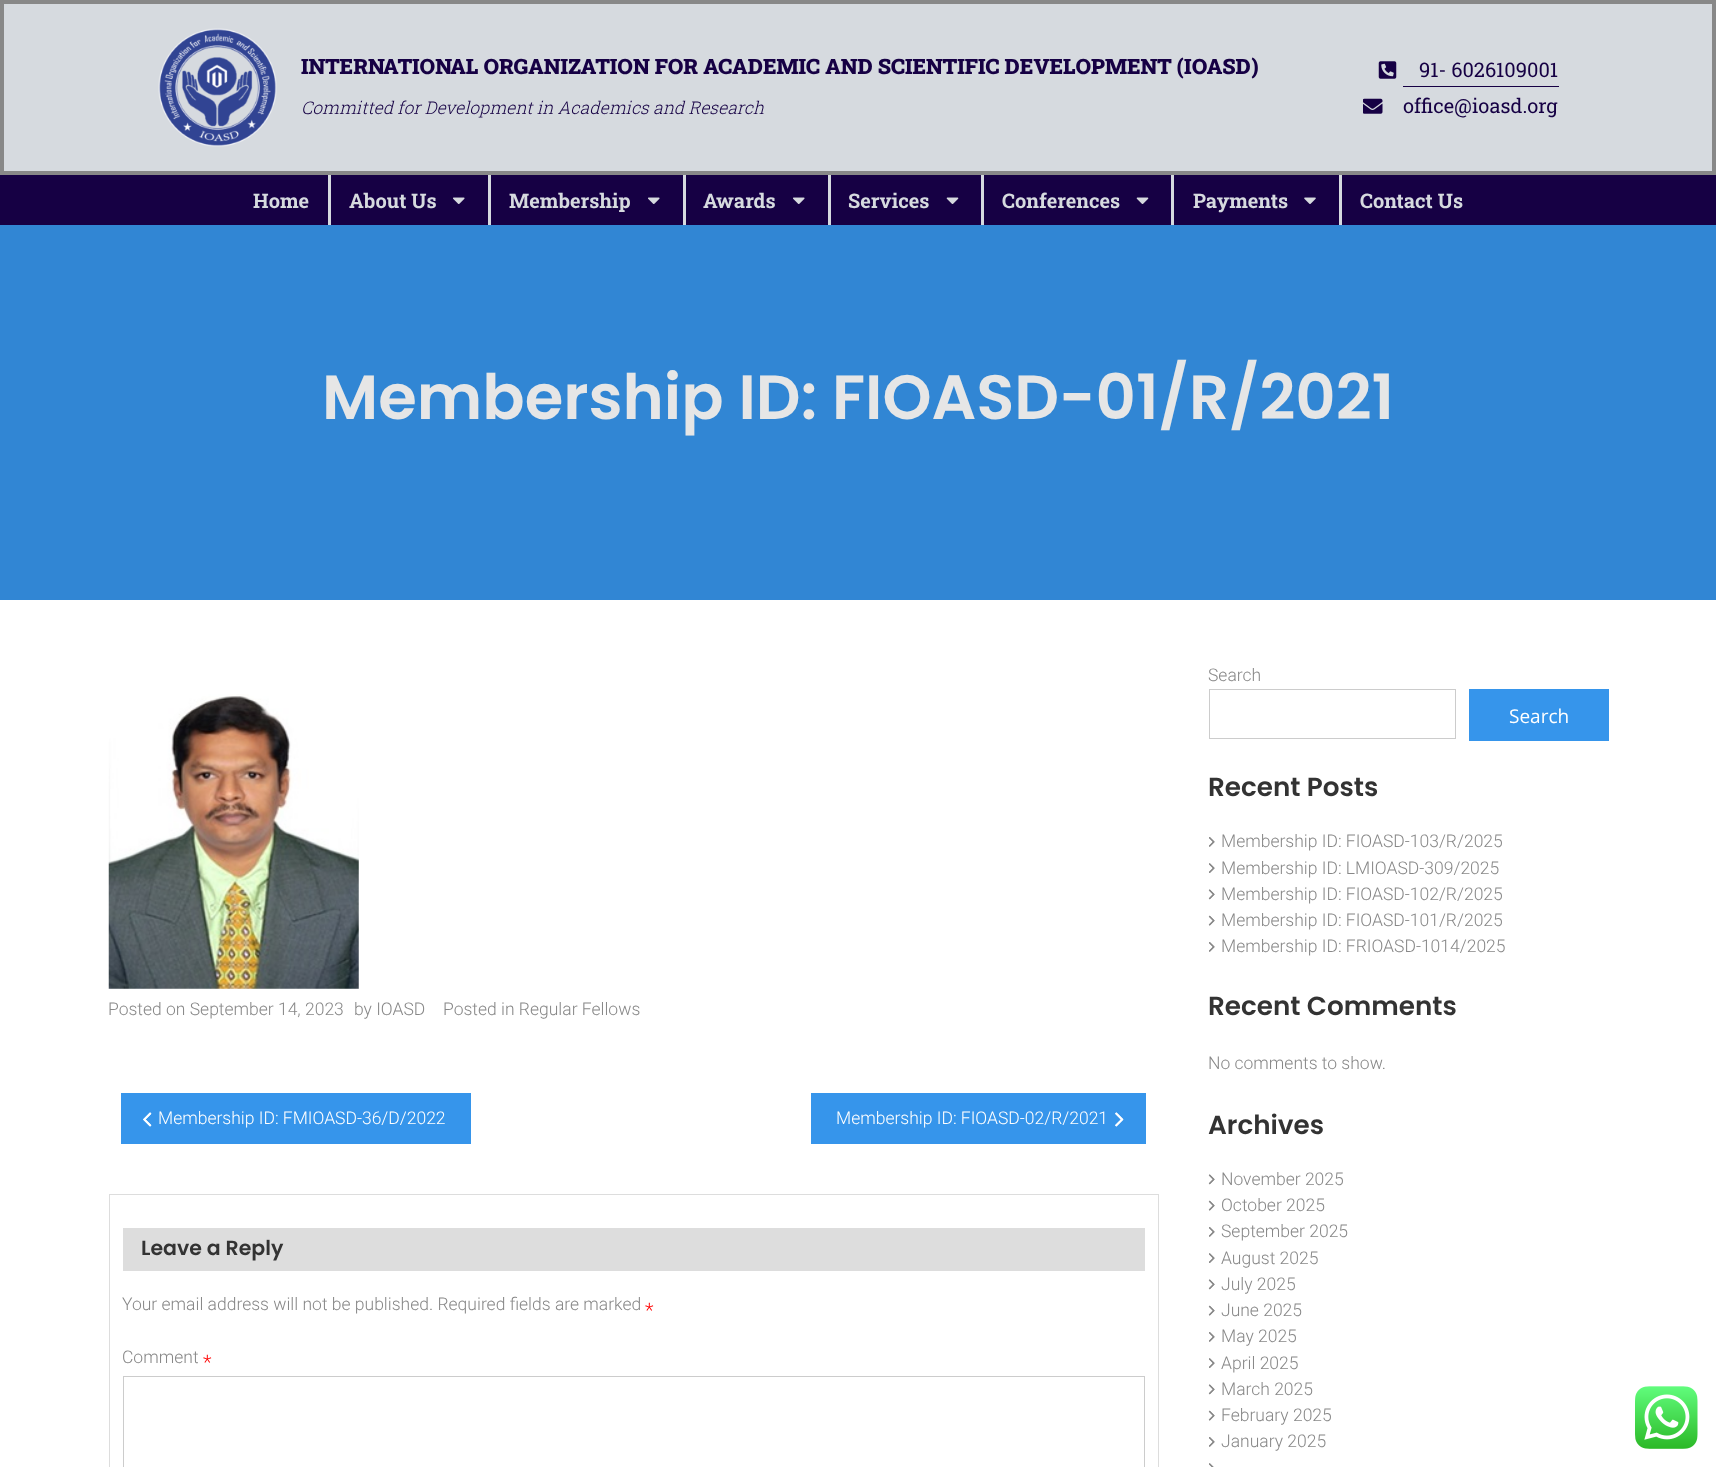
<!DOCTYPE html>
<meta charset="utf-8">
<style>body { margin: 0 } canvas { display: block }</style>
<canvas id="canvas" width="1716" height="1467"></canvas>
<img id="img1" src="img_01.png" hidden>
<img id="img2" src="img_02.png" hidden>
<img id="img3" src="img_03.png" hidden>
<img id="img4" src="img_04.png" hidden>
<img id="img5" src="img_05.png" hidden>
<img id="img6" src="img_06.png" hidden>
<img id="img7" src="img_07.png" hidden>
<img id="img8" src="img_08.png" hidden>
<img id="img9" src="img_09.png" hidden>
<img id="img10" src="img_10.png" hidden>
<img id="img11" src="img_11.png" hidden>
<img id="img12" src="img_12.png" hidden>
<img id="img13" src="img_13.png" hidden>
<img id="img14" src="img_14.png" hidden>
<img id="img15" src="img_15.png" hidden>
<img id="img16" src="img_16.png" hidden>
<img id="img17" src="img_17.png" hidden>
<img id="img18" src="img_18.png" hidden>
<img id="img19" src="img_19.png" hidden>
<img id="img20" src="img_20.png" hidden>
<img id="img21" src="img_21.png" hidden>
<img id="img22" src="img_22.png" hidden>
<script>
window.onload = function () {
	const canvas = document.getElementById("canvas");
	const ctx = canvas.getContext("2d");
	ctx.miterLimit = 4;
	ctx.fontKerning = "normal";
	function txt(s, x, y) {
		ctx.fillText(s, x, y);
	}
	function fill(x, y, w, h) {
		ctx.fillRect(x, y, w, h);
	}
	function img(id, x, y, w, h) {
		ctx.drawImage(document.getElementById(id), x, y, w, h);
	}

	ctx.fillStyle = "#FFFFFF";
	fill(0, 0, 1716, 1467);
	ctx.fillStyle = "#D6DADF";
	ctx.beginPath();
	ctx.rect(2, 2, 1712, 171);
	ctx.fill();
	ctx.strokeStyle = "#888888";
	ctx.lineWidth = 4;
	ctx.stroke();
	img("img1", 158, 28, 119, 119);
	img("img2", 1378, 61, 19, 18);
	ctx.fillStyle = "#160044";
	fill(1403, 86, 156, 1);
	img("img3", 1363, 98, 20, 16);
	fill(0, 175, 1716, 50);
	ctx.fillStyle = "#D6DADF";
	fill(328, 175, 3, 50);
	img("img4", 453, 197, 12, 7);
	fill(488, 175, 3, 50);
	img("img4", 648, 197, 12, 7);
	fill(683, 175, 3, 50);
	img("img4", 793, 197, 12, 7);
	fill(828, 175, 3, 50);
	img("img5", 946, 197, 13, 7);
	fill(981, 175, 3, 50);
	img("img5", 1136, 197, 13, 7);
	fill(1171, 175, 3, 50);
	img("img6", 1304, 197, 12, 7);
	fill(1339, 175, 3, 50);
	ctx.fillStyle = "#3186D4";
	fill(0, 225, 1716, 375);
	img("img7", 108, 694, 251, 295);
	ctx.fillStyle = "#3695EB";
	fill(121, 1093, 350, 51);
	img("img8", 143, 1112, 9, 15);
	img("img9", 143, 1112, 9, 15);
	fill(811, 1093, 335, 51);
	img("img10", 1115, 1112, 9, 15);
	img("img11", 1115, 1112, 9, 15);
	ctx.strokeStyle = "#DDDDDD";
	ctx.lineWidth = 1;
	ctx.strokeRect(109.5, 1194.5, 1049, 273);
	ctx.fillStyle = "#DDDDDD";
	fill(123, 1228, 1022, 43);
	ctx.strokeStyle = "#CCCCCC";
	ctx.strokeRect(123.5, 1376.5, 1021, 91);
	ctx.strokeRect(1209.5, 689.5, 246, 49);
	ctx.fillStyle = "#3695EB";
	fill(1469, 689, 140, 52);
	img("img12", 1209, 837, 6, 10);
	img("img13", 1209, 837, 6, 10);
	img("img14", 1209, 863, 6, 10);
	img("img15", 1209, 863, 6, 10);
	img("img16", 1208, 889, 7, 11);
	img("img17", 1208, 889, 7, 11);
	img("img18", 1208, 915, 7, 11);
	img("img19", 1208, 915, 7, 11);
	img("img12", 1209, 942, 6, 10);
	img("img13", 1209, 942, 6, 10);
	img("img16", 1208, 1174, 7, 11);
	img("img17", 1208, 1174, 7, 11);
	img("img18", 1208, 1200, 7, 11);
	img("img19", 1208, 1200, 7, 11);
	img("img12", 1209, 1227, 6, 10);
	img("img13", 1209, 1227, 6, 10);
	img("img14", 1209, 1253, 6, 10);
	img("img15", 1209, 1253, 6, 10);
	img("img16", 1208, 1279, 7, 11);
	img("img17", 1208, 1279, 7, 11);
	img("img18", 1208, 1305, 7, 11);
	img("img19", 1208, 1305, 7, 11);
	img("img12", 1209, 1332, 6, 10);
	img("img13", 1209, 1332, 6, 10);
	img("img14", 1209, 1358, 6, 10);
	img("img15", 1209, 1358, 6, 10);
	img("img16", 1208, 1384, 7, 11);
	img("img17", 1208, 1384, 7, 11);
	img("img18", 1208, 1410, 7, 11);
	img("img19", 1208, 1410, 7, 11);
	img("img12", 1209, 1437, 6, 10);
	img("img13", 1209, 1437, 6, 10);
	img("img20", 1209, 1463, 5, 4);
	img("img21", 1209, 1463, 5, 4);
	img("img22", 1635, 1386, 63, 63);
	ctx.font = "900 21.25px Roboto Slab";
	ctx.fillStyle = "#160044";
	txt("INTERNATIONAL ORGANIZATION FOR ACADEMIC AND SCIENTIFIC DEVELOPMENT (IOASD)", 301, 74);
	ctx.font = "italic 300 17.5px Roboto Slab";
	txt("Committed for Development in Academics and Research", 301, 114);
	ctx.font = "20px Roboto Slab";
	txt("91- 6026109001", 1419, 77);
	txt("office@ioasd.org", 1403, 113);
	ctx.font = "bold 20px Roboto Slab";
	ctx.fillStyle = "#D6DADF";
	txt("Home", 253, 208);
	txt("About Us", 349, 208);
	txt("Membership", 509, 208);
	txt("Awards", 703, 208);
	txt("Services", 848, 208);
	txt("Conferences", 1002, 208);
	txt("Payments", 1193, 208);
	txt("Contact Us", 1360, 208);
	ctx.font = "600 62.5px Poppins";
	ctx.fillStyle = "#E6E6E6";
	txt("Membership ID: FIOASD-01/R/2021", 322, 419);
	ctx.font = "300 17.5px Roboto";
	ctx.fillStyle = "#888888";
	txt("Posted on September 14, 2023", 108, 1015);
	txt("by IOASD", 354, 1015);
	txt("Posted in Regular Fellows", 443, 1015);
	ctx.fillStyle = "#FFFFFF";
	txt("Membership ID: FMIOASD-36/D/2022", 158, 1124);
	txt("Membership ID: FIOASD-02/R/2021", 836, 1124);
	ctx.font = "600 20.5px Poppins";
	ctx.fillStyle = "#333333";
	txt("Leave a Reply", 141, 1255);
	ctx.font = "300 17.5px Roboto";
	ctx.fillStyle = "#888888";
	txt("Your email address will not be published. Required fields are marked", 122, 1310);
	ctx.font = "300 20px Roboto";
	ctx.fillStyle = "#FF0000";
	txt("*", 645, 1317);
	ctx.font = "300 17.5px Roboto";
	ctx.fillStyle = "#888888";
	txt("Comment", 122, 1363);
	ctx.font = "300 20px Roboto";
	ctx.fillStyle = "#FF0000";
	txt("*", 203, 1369);
	ctx.font = "300 17.5px Roboto";
	ctx.fillStyle = "#888888";
	txt("Search", 1208, 681);
	ctx.font = "19px Open Sans";
	ctx.fillStyle = "#FFFFFF";
	txt("Search", 1509, 723);
	ctx.font = "600 26.25px Poppins";
	ctx.fillStyle = "#333333";
	txt("Recent Posts", 1208, 796);
	ctx.font = "300 17.5px Roboto";
	ctx.fillStyle = "#888888";
	txt("Membership ID: FIOASD-103/R/2025", 1221, 847);
	txt("Membership ID: LMIOASD-309/2025", 1221, 874);
	txt("Membership ID: FIOASD-102/R/2025", 1221, 900);
	txt("Membership ID: FIOASD-101/R/2025", 1221, 926);
	txt("Membership ID: FRIOASD-1014/2025", 1221, 952);
	ctx.font = "600 26.25px Poppins";
	ctx.fillStyle = "#333333";
	txt("Recent Comments", 1208, 1015);
	ctx.font = "300 17.5px Roboto";
	ctx.fillStyle = "#888888";
	txt("No comments to show.", 1208, 1069);
	ctx.font = "600 26.25px Poppins";
	ctx.fillStyle = "#333333";
	txt("Archives", 1208, 1134);
	ctx.font = "300 17.5px Roboto";
	ctx.fillStyle = "#888888";
	txt("November 2025", 1221, 1185);
	txt("October 2025", 1221, 1211);
	txt("September 2025", 1221, 1237);
	txt("August 2025", 1221, 1264);
	txt("July 2025", 1221, 1290);
	txt("June 2025", 1221, 1316);
	txt("May 2025", 1221, 1342);
	txt("April 2025", 1221, 1369);
	txt("March 2025", 1221, 1395);
	txt("February 2025", 1221, 1421);
	txt("January 2025", 1221, 1447);
};
</script>
